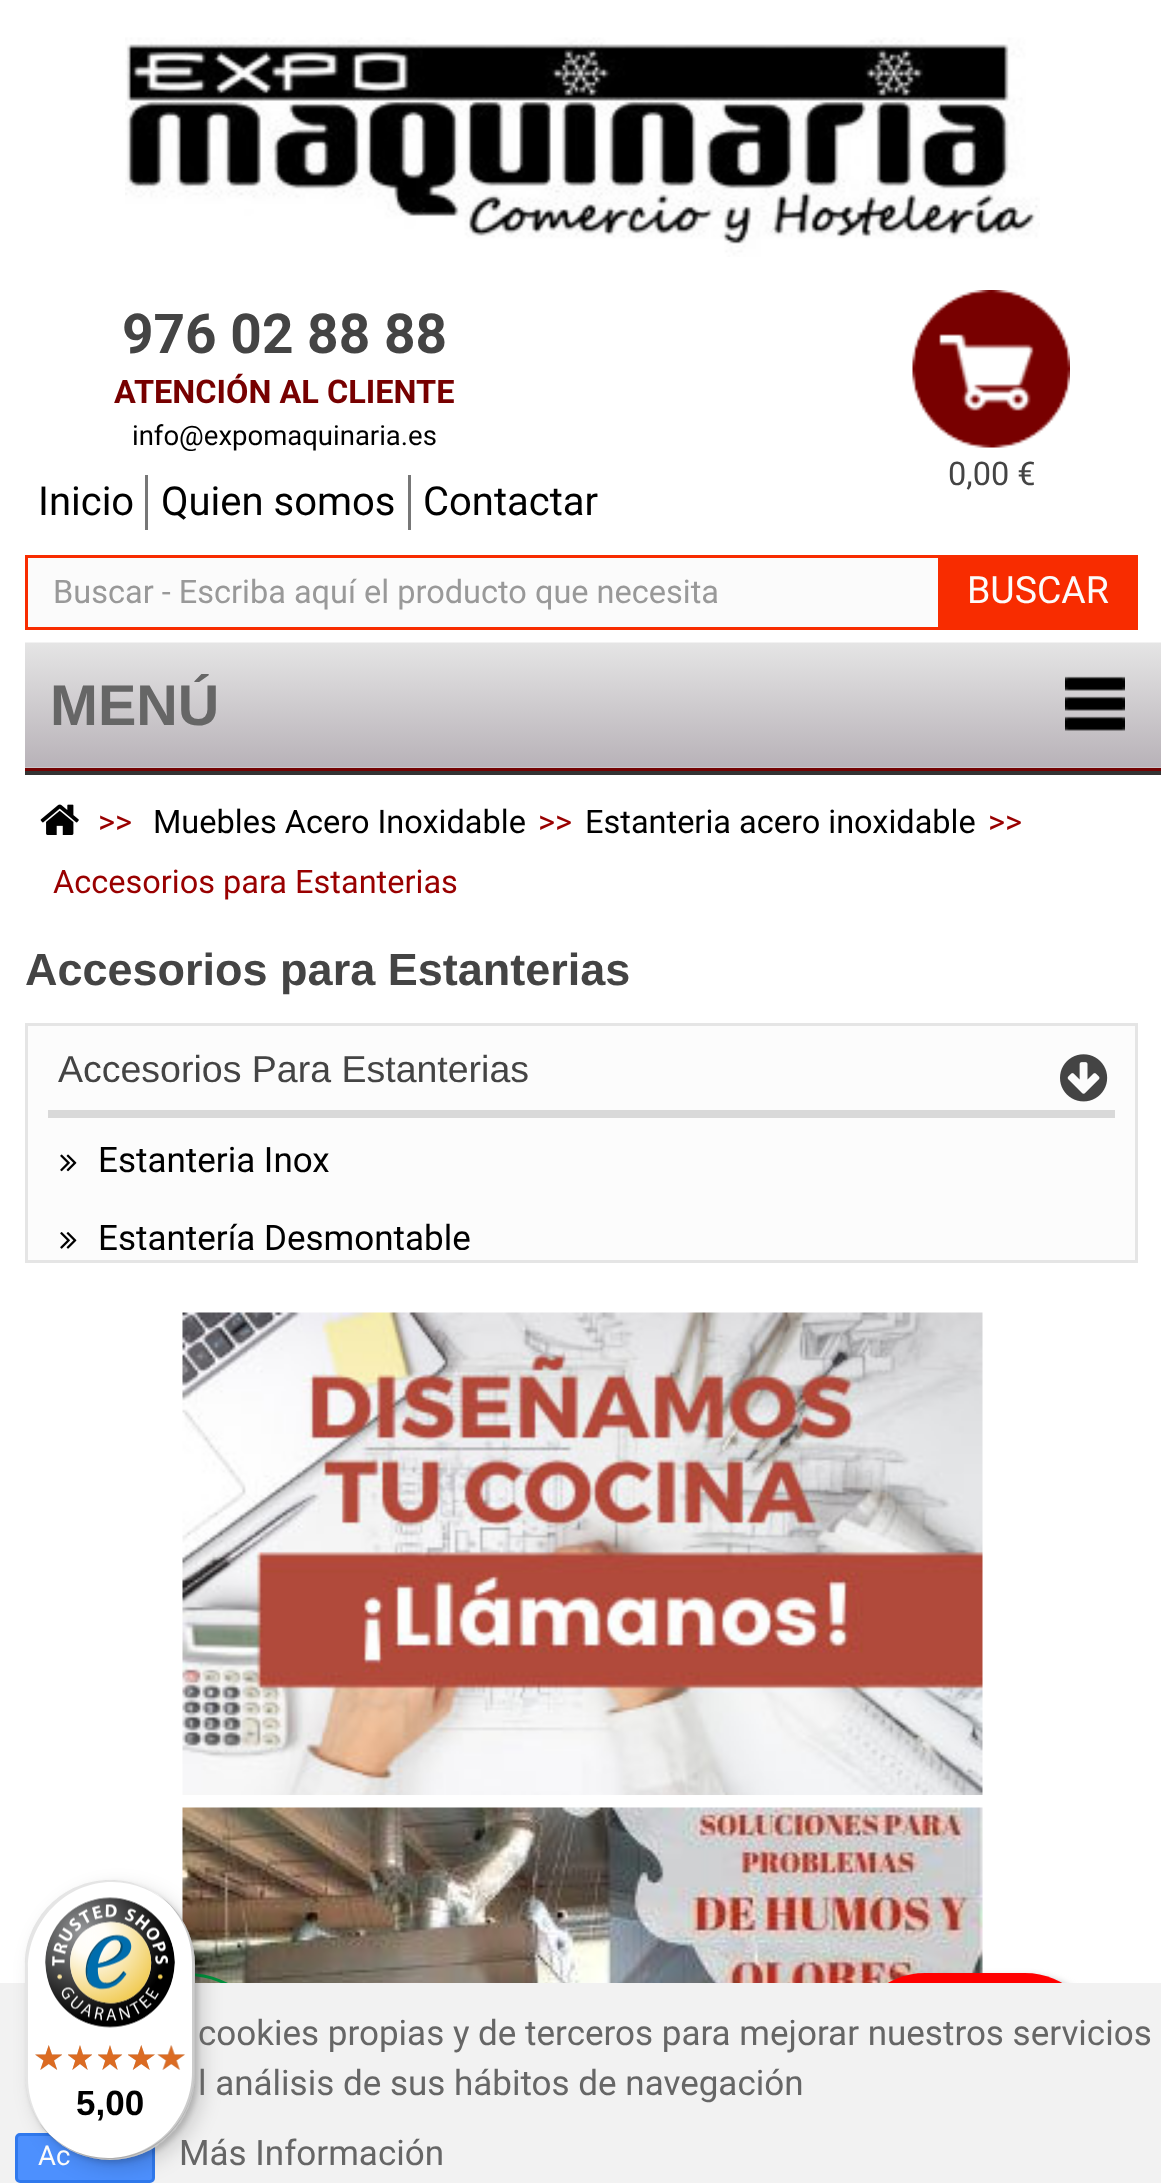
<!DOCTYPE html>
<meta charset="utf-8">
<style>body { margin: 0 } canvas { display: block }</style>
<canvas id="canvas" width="1161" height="2183"></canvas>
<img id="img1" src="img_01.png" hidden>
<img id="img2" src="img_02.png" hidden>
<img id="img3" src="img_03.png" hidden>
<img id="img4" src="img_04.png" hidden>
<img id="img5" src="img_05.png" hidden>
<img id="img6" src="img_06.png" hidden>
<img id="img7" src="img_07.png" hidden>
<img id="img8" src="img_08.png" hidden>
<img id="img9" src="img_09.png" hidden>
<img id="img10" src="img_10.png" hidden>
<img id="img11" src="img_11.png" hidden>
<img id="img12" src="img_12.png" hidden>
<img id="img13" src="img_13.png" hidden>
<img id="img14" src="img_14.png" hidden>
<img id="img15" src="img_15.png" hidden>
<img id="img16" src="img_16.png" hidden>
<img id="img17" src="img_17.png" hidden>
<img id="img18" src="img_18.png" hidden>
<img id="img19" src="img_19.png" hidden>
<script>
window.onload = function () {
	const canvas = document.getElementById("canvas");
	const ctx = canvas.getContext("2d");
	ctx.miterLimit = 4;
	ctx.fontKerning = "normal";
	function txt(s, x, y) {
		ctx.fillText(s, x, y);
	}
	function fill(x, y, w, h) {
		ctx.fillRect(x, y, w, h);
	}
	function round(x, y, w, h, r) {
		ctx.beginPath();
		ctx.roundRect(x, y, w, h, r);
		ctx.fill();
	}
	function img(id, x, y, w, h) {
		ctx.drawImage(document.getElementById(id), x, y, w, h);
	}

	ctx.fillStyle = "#FFFFFF";
	fill(0, 0, 1161, 2183);
	img("img1", 125, 37, 915, 220);
	img("img2", 912, 290, 158, 158);
	ctx.fillStyle = "#777777";
	fill(145, 475, 3, 55);
	fill(408, 475, 3, 55);
	ctx.fillStyle = "#FBFBFB";
	fill(28, 558, 910, 69);
	ctx.strokeStyle = "#F82C00";
	ctx.lineWidth = 3;
	ctx.strokeRect(26.5, 556.5, 1110, 72);
	ctx.fillStyle = "#F82C00";
	fill(938, 558, 197, 69);
	ctx.fillStyle = "#333333";
	fill(25, 771, 1136, 4);
	ctx.fillStyle = "#DDDDDD";
	fill(25, 767, 1136, 1);
	ctx.fillStyle = "#730202";
	fill(25, 768, 1136, 3);
	img("img3", 25, 642, 1136, 126);
	img("img4", 40, 804, 39, 31);
	ctx.fillStyle = "#FCFCFC";
	ctx.beginPath();
	ctx.rect(26.5, 1024.5, 1110, 237);
	ctx.fill();
	ctx.strokeStyle = "#E5E5E5";
	ctx.stroke();
	img("img5", 1060, 1054, 48, 48);
	ctx.fillStyle = "#D9D9D9";
	fill(48, 1110, 1067, 8);
	img("img6", 60, 1154, 17, 18);
	img("img7", 60, 1232, 17, 17);
	img("img8", 182, 1312, 801, 483);
	img("img9", 182, 1807, 801, 176);
	ctx.fillStyle = "#999999";
	ctx.filter = "blur(4px)";
	ctx.beginPath();
	ctx.roundRect(855, 1978, 250, 150, 75);
	ctx.fill();
	ctx.filter = "none";
	ctx.fillStyle = "#FF0000";
	round(850, 1973, 250, 150, 75);
	ctx.beginPath();
	ctx.arc(187.5, 2060.5, 86, 0, Math.PI * 2);
	ctx.strokeStyle = "#008F3C";
	ctx.stroke();
	ctx.fillStyle = "#F2F2F2";
	fill(0, 1983, 1161, 200);
	ctx.fillStyle = "#4D90FE";
	ctx.beginPath();
	ctx.roundRect(16.5, 2134.5, 137, 47, 3.5);
	ctx.fill();
	ctx.strokeStyle = "#3079ED";
	ctx.stroke();
	ctx.fillStyle = "rgba(0, 0, 0, 0.15)";
	ctx.filter = "blur(10px)";
	ctx.beginPath();
	ctx.roundRect(33, 1888, 170, 280, 85);
	ctx.fill();
	ctx.filter = "none";
	ctx.filter = "blur(2.5px)";
	ctx.beginPath();
	ctx.roundRect(28, 1883, 170, 280, 85);
	ctx.fill();
	ctx.filter = "none";
	ctx.font = "bold 55px Roboto";
	ctx.fillStyle = "#444444";
	txt("976 02 88 88", 122, 353);
	ctx.font = "bold 32.5px Roboto";
	ctx.fillStyle = "#770000";
	txt("ATENCIÓN AL CLIENTE", 114, 403);
	ctx.font = "27.5px Roboto";
	ctx.fillStyle = "#000000";
	txt("info@expomaquinaria.es", 132, 445);
	ctx.font = "32.5px Roboto";
	ctx.fillStyle = "#444444";
	txt("0,00 €", 948, 485);
	ctx.font = "40px Roboto";
	ctx.fillStyle = "#000000";
	txt("Inicio", 38, 515);
	txt("Quien somos", 161, 515);
	txt("Contactar", 423, 515);
	ctx.font = "32.5px Roboto";
	ctx.fillStyle = "#999999";
	txt("Buscar - Escriba aquí el producto que necesita", 53, 603);
	ctx.font = "37.5px Roboto";
	ctx.fillStyle = "#FCFBFA";
	txt("BUSCAR", 967, 603);
	ctx.font = "bold 57.5px Liberation Sans";
	ctx.fillStyle = "#666666";
	txt("MENÚ", 50, 725);
	ctx.font = "32.5px Roboto";
	ctx.fillStyle = "#990000";
	txt(">>", 98, 833);
	ctx.fillStyle = "#000000";
	txt("Muebles Acero Inoxidable", 153, 833);
	ctx.fillStyle = "#990000";
	txt(">>", 538, 833);
	ctx.fillStyle = "#000000";
	txt("Estanteria acero inoxidable", 585, 833);
	ctx.fillStyle = "#990000";
	txt(">>", 988, 833);
	txt("Accesorios para Estanterias", 53, 893);
	ctx.font = "bold 45px Liberation Sans";
	ctx.fillStyle = "#444444";
	txt("Accesorios para Estanterias", 25, 985);
	ctx.font = "37.5px Liberation Sans";
	txt("Accesorios Para Estanterias", 58, 1082);
	ctx.font = "35px Roboto";
	ctx.fillStyle = "#000000";
	txt("Estanteria Inox", 98, 1172);
	ctx.save();
	ctx.beginPath();
	ctx.rect(48, 1118, 1067, 132);
	ctx.clip();
	txt("Estantería Desmontable", 98, 1250);
	ctx.restore();
	ctx.fillStyle = "#666666";
	txt("cookies propias y de terceros para mejorar nuestros servicios", 198, 2045);
	txt("l análisis de sus hábitos de navegación", 198, 2095);
	ctx.font = "27.5px Roboto";
	ctx.fillStyle = "#FCFBFA";
	txt("Ac", 38, 2165);
	ctx.font = "35px Roboto";
	ctx.fillStyle = "#666666";
	txt("Más Información", 179, 2165);
	ctx.fillStyle = "#FFFFFF";
	round(25, 1880, 170, 280, 85);
	ctx.fillStyle = "rgba(0, 0, 0, 0.1)";
	ctx.beginPath();
	ctx.moveTo(112, 1882);
	ctx.bezierCurveTo(135, 1882, 155, 1891, 171, 1906);
	ctx.bezierCurveTo(155, 1890, 134, 1880, 110, 1880);
	ctx.bezierCurveTo(63, 1880, 25, 1918, 25, 1965);
	ctx.lineTo(25, 2075);
	ctx.bezierCurveTo(25, 2103, 39, 2129, 60, 2144);
	ctx.bezierCurveTo(41, 2129, 28, 2105, 28, 2078);
	ctx.lineTo(28, 1968);
	ctx.bezierCurveTo(28, 1921, 66, 1882, 112, 1882);
	ctx.closePath();
	ctx.fill();
	ctx.fillStyle = "rgba(0, 0, 0, 0.2)";
	ctx.beginPath();
	ctx.moveTo(49, 2134);
	ctx.bezierCurveTo(65, 2150, 86, 2160, 110, 2160);
	ctx.bezierCurveTo(157, 2160, 195, 2122, 195, 2075);
	ctx.lineTo(195, 1965);
	ctx.bezierCurveTo(195, 1937, 181, 1911, 160, 1896);
	ctx.bezierCurveTo(179, 1911, 192, 1935, 192, 1962);
	ctx.lineTo(192, 2072);
	ctx.bezierCurveTo(192, 2119, 154, 2158, 108, 2158);
	ctx.bezierCurveTo(85, 2158, 65, 2149, 49, 2134);
	ctx.closePath();
	ctx.fill();
	ctx.fillStyle = "rgba(50, 50, 50, 0.2)";
	ctx.beginPath();
	ctx.moveTo(36, 2118);
	ctx.bezierCurveTo(51, 2143, 79, 2160, 110, 2160);
	ctx.bezierCurveTo(157, 2160, 195, 2122, 195, 2075);
	ctx.lineTo(195, 1965);
	ctx.bezierCurveTo(195, 1942, 186, 1920, 170, 1905);
	ctx.bezierCurveTo(185, 1920, 194, 1941, 194, 1964);
	ctx.lineTo(194, 2074);
	ctx.bezierCurveTo(194, 2120, 155, 2158, 109, 2158);
	ctx.bezierCurveTo(78, 2158, 51, 2142, 36, 2118);
	ctx.closePath();
	ctx.fill();
	ctx.fillStyle = "rgba(255, 255, 255, 0.3)";
	ctx.beginPath();
	ctx.moveTo(51, 2136);
	ctx.bezierCurveTo(66, 2151, 87, 2160, 110, 2160);
	ctx.bezierCurveTo(157, 2160, 195, 2122, 195, 2075);
	ctx.lineTo(195, 1965);
	ctx.bezierCurveTo(195, 1942, 186, 1921, 171, 1906);
	ctx.bezierCurveTo(185, 1921, 194, 1941, 194, 1964);
	ctx.lineTo(194, 2074);
	ctx.bezierCurveTo(194, 2121, 156, 2159, 109, 2159);
	ctx.bezierCurveTo(86, 2159, 66, 2150, 51, 2136);
	ctx.closePath();
	ctx.fill();
	img("img10", 45, 1897, 130, 131);
	img("img11", 35, 2045, 27, 25);
	img("img12", 68, 2045, 24, 25);
	img("img13", 98, 2045, 24, 25);
	img("img14", 128, 2045, 27, 25);
	img("img14", 158, 2045, 27, 25);
	img("img15", 35, 2045, 27, 25);
	img("img16", 68, 2045, 24, 25);
	img("img17", 98, 2045, 25, 25);
	img("img18", 128, 2045, 27, 25);
	img("img19", 157, 2045, 28, 25);
	ctx.font = "bold 35px Liberation Sans";
	ctx.fillStyle = "#000000";
	txt("5,00", 76, 2115);
};
</script>
